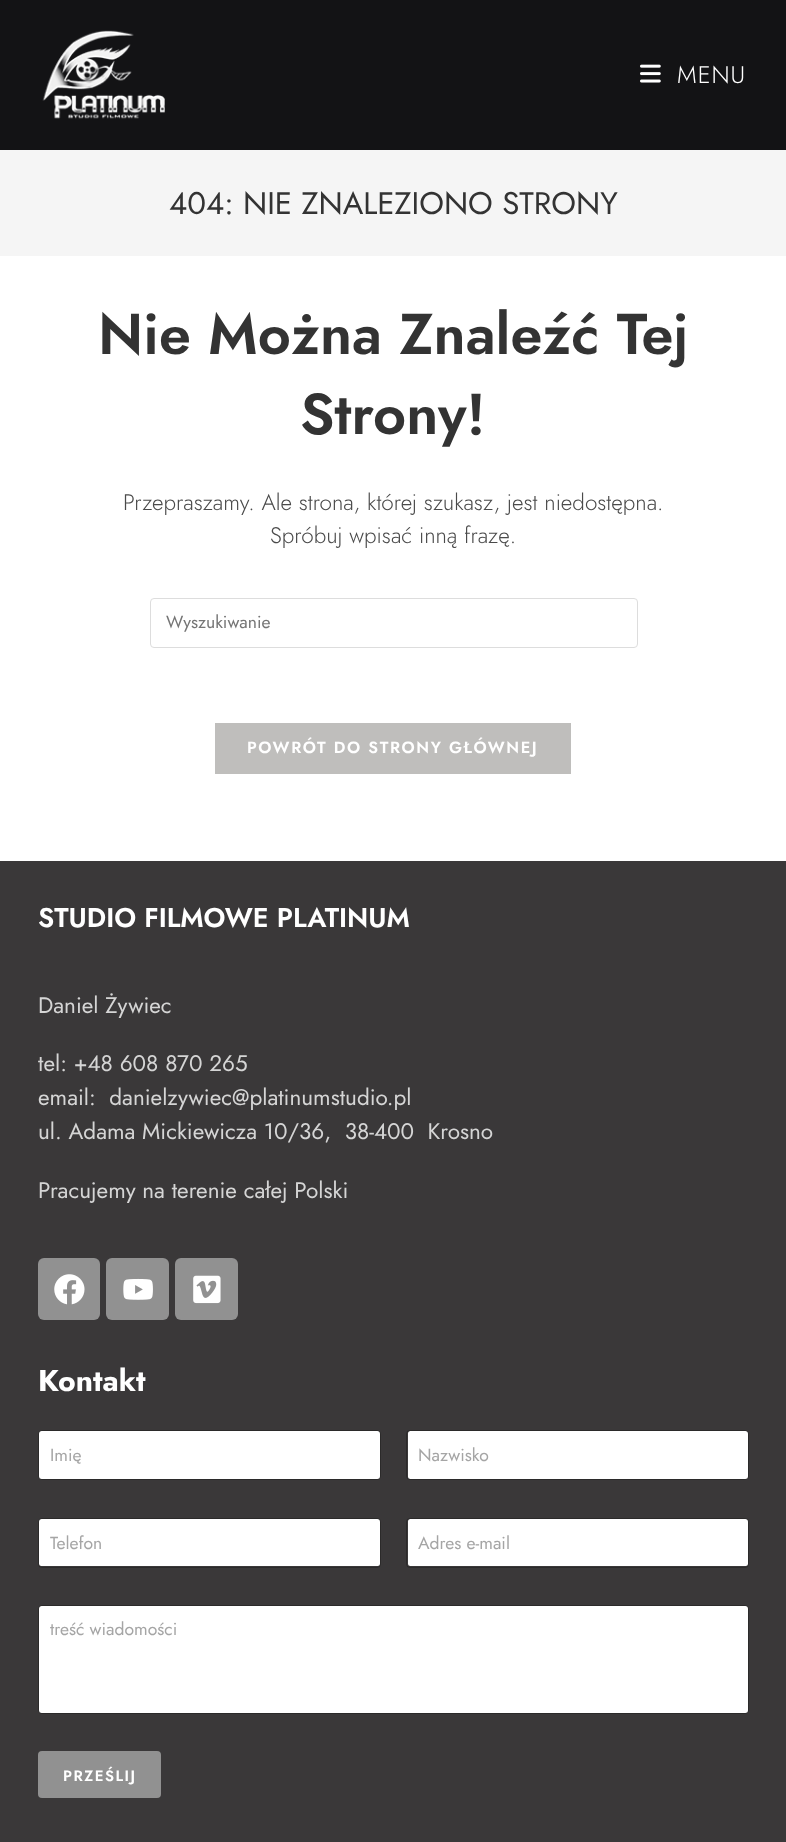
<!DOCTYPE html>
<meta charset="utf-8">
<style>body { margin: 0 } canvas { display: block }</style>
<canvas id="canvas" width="786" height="1842"></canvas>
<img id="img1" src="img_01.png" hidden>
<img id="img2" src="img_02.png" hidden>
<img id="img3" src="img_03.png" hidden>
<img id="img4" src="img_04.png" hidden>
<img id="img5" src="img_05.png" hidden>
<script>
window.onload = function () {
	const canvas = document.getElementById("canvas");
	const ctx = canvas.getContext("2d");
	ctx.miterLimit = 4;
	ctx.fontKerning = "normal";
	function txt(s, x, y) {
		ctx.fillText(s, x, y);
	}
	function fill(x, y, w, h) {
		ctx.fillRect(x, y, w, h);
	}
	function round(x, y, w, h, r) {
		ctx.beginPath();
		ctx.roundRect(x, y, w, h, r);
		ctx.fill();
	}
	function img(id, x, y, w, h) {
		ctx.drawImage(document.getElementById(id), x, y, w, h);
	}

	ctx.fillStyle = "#FFFFFF";
	fill(0, 0, 786, 1842);
	ctx.fillStyle = "#131315";
	fill(0, 0, 786, 150);
	img("img1", 42, 30, 123, 89);
	img("img2", 640, 64, 21, 19);
	ctx.fillStyle = "#F5F5F5";
	fill(0, 150, 786, 106);
	ctx.beginPath();
	ctx.roundRect(150.5, 598.5, 487, 49, 3.5);
	ctx.strokeStyle = "#DDDDDD";
	ctx.stroke();
	ctx.fillStyle = "#BFBEBC";
	fill(215, 723, 356, 51);
	ctx.fillStyle = "#3A3839";
	fill(0, 861, 786, 981);
	ctx.fillStyle = "#919191";
	round(38, 1258, 62, 62, 6);
	img("img3", 54, 1274, 31, 31);
	round(106, 1258, 63, 62, 6);
	img("img4", 123, 1278, 30, 22);
	round(175, 1258, 63, 62, 6);
	img("img5", 193, 1275, 28, 29);
	ctx.fillStyle = "#FFFFFF";
	round(39, 1431, 341, 48, 2.5);
	ctx.beginPath();
	ctx.roundRect(38.5, 1430.5, 342, 49, 3.5);
	ctx.strokeStyle = "rgba(0, 0, 0, 0.25)";
	ctx.stroke();
	round(408, 1431, 340, 48, 2.5);
	ctx.beginPath();
	ctx.roundRect(406.5, 1430.5, 342, 49, 3.5);
	ctx.stroke();
	round(39, 1519, 341, 47, 2.5);
	ctx.beginPath();
	ctx.roundRect(38.5, 1518.5, 342, 49, 3.5);
	ctx.stroke();
	round(408, 1519, 340, 47, 2.5);
	ctx.beginPath();
	ctx.roundRect(406.5, 1518.5, 342, 49, 3.5);
	ctx.stroke();
	round(39, 1606, 709, 107, 2.5);
	ctx.beginPath();
	ctx.roundRect(38.5, 1605.5, 710, 108, 3.5);
	ctx.stroke();
	ctx.fillStyle = "#919191";
	round(38, 1751, 123, 47, 4);
	ctx.letterSpacing = "1px";
	ctx.font = "300 24px Jost";
	ctx.fillStyle = "#FFFFFF";
	txt("MENU", 677, 83);
	ctx.letterSpacing = "0px";
	ctx.font = "31.25px Jost";
	ctx.fillStyle = "#333333";
	txt("404: NIE ZNALEZIONO STRONY", 169, 214);
	ctx.font = "600 57.5px Jost";
	txt("Nie Można Znaleźć Tej", 98, 354);
	txt("Strony!", 300, 434);
	ctx.font = "300 22.5px Jost";
	ctx.fillStyle = "#4A4A4A";
	txt("Przepraszamy. Ale strona, której szukasz, jest niedostępna.", 123, 510);
	txt("Spróbuj wpisać inną frazę.", 270, 543);
	ctx.font = "17.5px Jost";
	ctx.fillStyle = "#757575";
	txt("Wyszukiwanie", 166, 628);
	ctx.letterSpacing = "1.6px";
	ctx.font = "600 16.25px Jost";
	ctx.fillStyle = "#FFFFFF";
	txt("POWRÓT DO STRONY GŁÓWNEJ", 247, 753);
	ctx.letterSpacing = "0px";
	ctx.font = "600 27px Jost";
	txt("STUDIO FILMOWE PLATINUM", 38, 927);
	ctx.font = "22.5px Jost";
	ctx.fillStyle = "#D5D5D5";
	txt("Daniel Żywiec", 38, 1013);
	txt("tel: +48 608 870 265", 38, 1071);
	txt("email:  danielzywiec@platinumstudio.pl", 38, 1105);
	txt("ul. Adama Mickiewicza 10/36,  38-400  Krosno", 38, 1139);
	txt("Pracujemy na terenie całej Polski", 38, 1198);
	ctx.font = "bold 30px Jost";
	ctx.fillStyle = "#FFFFFF";
	txt("Kontakt", 38, 1391);
	ctx.font = "17.5px Jost";
	ctx.fillStyle = "#A5A5A5";
	txt("Imię", 50, 1461);
	txt("Nazwisko", 418, 1461);
	txt("Telefon", 50, 1549);
	txt("Adres e-mail", 418, 1549);
	txt("treść wiadomości", 50, 1635);
	ctx.letterSpacing = "1.5px";
	ctx.font = "600 15px Jost";
	ctx.fillStyle = "#FFFFFF";
	txt("PRZEŚLIJ", 63, 1781);
};
</script>
